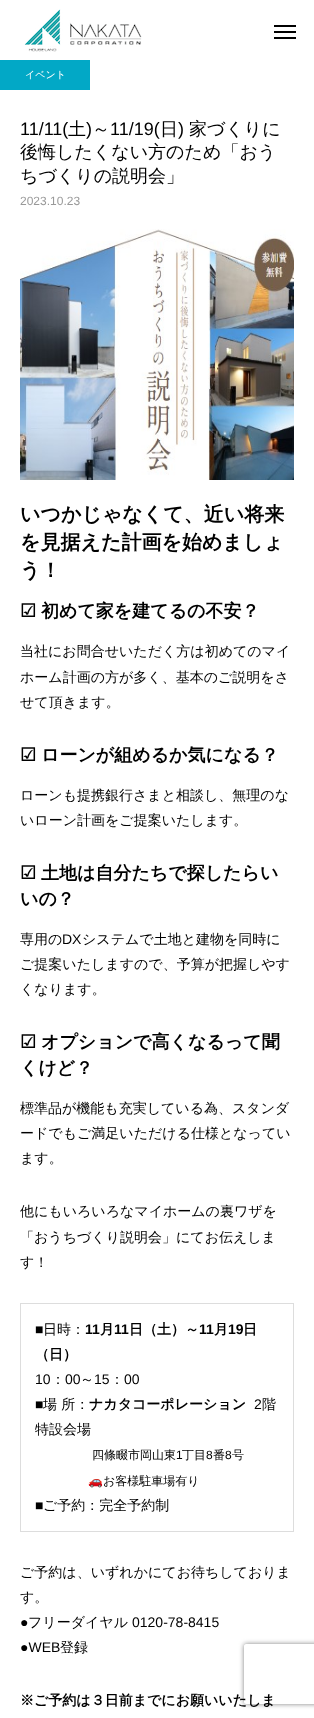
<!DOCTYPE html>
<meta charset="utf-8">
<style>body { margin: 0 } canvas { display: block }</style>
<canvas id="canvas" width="314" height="1718"></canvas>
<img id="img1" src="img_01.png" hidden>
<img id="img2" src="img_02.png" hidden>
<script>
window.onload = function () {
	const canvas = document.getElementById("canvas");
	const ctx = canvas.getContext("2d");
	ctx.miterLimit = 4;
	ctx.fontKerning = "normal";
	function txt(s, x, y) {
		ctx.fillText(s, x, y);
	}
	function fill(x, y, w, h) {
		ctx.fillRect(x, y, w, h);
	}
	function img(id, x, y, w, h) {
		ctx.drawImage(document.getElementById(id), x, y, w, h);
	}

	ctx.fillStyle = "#FFFFFF";
	fill(0, 0, 314, 1718);
	img("img1", 24, 9, 118, 43);
	ctx.fillStyle = "#000000";
	fill(274, 25, 22, 2);
	fill(274, 31, 22, 2);
	fill(274, 37, 22, 2);
	ctx.fillStyle = "#02A8C6";
	fill(0, 60, 90, 30);
	img("img2", 20, 229, 274, 251);
	ctx.strokeStyle = "#DDDDDD";
	ctx.strokeRect(20.5, 1303.5, 273, 228);
	ctx.save();
	ctx.beginPath();
	ctx.moveTo(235, 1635);
	ctx.lineTo(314, 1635);
	ctx.lineTo(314, 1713);
	ctx.lineTo(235, 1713);
	ctx.closePath();
	ctx.moveTo(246, 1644);
	ctx.lineTo(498, 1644);
	ctx.bezierCurveTo(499, 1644, 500, 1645, 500, 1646);
	ctx.lineTo(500, 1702);
	ctx.bezierCurveTo(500, 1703, 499, 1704, 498, 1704);
	ctx.lineTo(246, 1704);
	ctx.bezierCurveTo(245, 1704, 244, 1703, 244, 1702);
	ctx.lineTo(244, 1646);
	ctx.bezierCurveTo(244, 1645, 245, 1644, 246, 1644);
	ctx.closePath();
	ctx.clip("evenodd");
	ctx.fillStyle = "#808080";
	ctx.filter = "blur(2.5px)";
	ctx.beginPath();
	ctx.roundRect(244, 1644, 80, 60, 2);
	ctx.fill();
	ctx.filter = "none";
	ctx.restore();
	ctx.font = "500 10px WenQuanYi Zen Hei";
	ctx.fillStyle = "#FFFFFF";
	txt("イベント", 25, 78);
	ctx.font = "18px Liberation Sans";
	ctx.fillStyle = "#000000";
	txt("11/11(", 20, 135);
	ctx.font = "500 18px WenQuanYi Zen Hei";
	txt("土", 68, 135);
	ctx.font = "18px Liberation Sans";
	txt(")", 86, 135);
	ctx.font = "500 18px WenQuanYi Zen Hei";
	txt("～", 92, 135);
	ctx.font = "18px Liberation Sans";
	txt("11/19(", 110, 135);
	ctx.font = "500 18px WenQuanYi Zen Hei";
	txt("日", 160, 135);
	ctx.font = "18px Liberation Sans";
	txt(")", 178, 135);
	ctx.font = "500 18px WenQuanYi Zen Hei";
	txt("家づくりに", 189, 135);
	txt("後悔したくない方のため「おう", 20, 158);
	txt("ちづくりの説明会」", 20, 182);
	ctx.font = "12px Liberation Sans";
	ctx.fillStyle = "#999999";
	txt("2023.10.23", 20, 205);
	ctx.font = "bold 20px WenQuanYi Zen Hei";
	ctx.fillStyle = "#000000";
	txt("いつかじゃなくて、近い将来", 20, 521);
	txt("を見据えた計画を始めましょ", 20, 549);
	txt("う！", 20, 577);
	ctx.font = "bold 18px DejaVu Sans";
	txt("☑", 20, 617);
	ctx.font = "bold 18px WenQuanYi Zen Hei";
	txt("初めて家を建てるの不安？", 41, 617);
	ctx.font = "500 14px WenQuanYi Zen Hei";
	txt("当社にお問合せいただく方は初めてのマイ", 20, 656);
	txt("ホーム計画の方が多く、基本のご説明をさ", 20, 682);
	txt("せて頂きます。", 20, 707);
	ctx.font = "bold 18px DejaVu Sans";
	txt("☑", 20, 761);
	ctx.font = "bold 18px WenQuanYi Zen Hei";
	txt("ローンが組めるか気になる？", 41, 761);
	ctx.font = "500 14px WenQuanYi Zen Hei";
	txt("ローンも提携銀行さまと相談し、無理のな", 20, 800);
	txt("いローン計画をご提案いたします。", 20, 825);
	ctx.font = "bold 18px DejaVu Sans";
	txt("☑", 20, 879);
	ctx.font = "bold 18px WenQuanYi Zen Hei";
	txt("土地は自分たちで探したらい", 41, 879);
	txt("いの？", 20, 905);
	ctx.font = "500 14px WenQuanYi Zen Hei";
	txt("専用の", 20, 944);
	ctx.font = "14px Liberation Sans";
	txt("DX", 62, 944);
	ctx.font = "500 14px WenQuanYi Zen Hei";
	txt("システムで土地と建物を同時に", 82, 944);
	txt("ご提案いたしますので、予算が把握しやす", 20, 969);
	txt("くなります。", 20, 994);
	ctx.font = "bold 18px DejaVu Sans";
	txt("☑", 20, 1048);
	ctx.font = "bold 18px WenQuanYi Zen Hei";
	txt("オプションで高くなるって聞", 41, 1048);
	txt("くけど？", 20, 1074);
	ctx.font = "500 14px WenQuanYi Zen Hei";
	txt("標準品が機能も充実している為、スタンダ", 20, 1113);
	txt("ードでもご満足いただける仕様となってい", 20, 1138);
	txt("ます。", 20, 1163);
	txt("他にもいろいろなマイホームの裏ワザを", 20, 1216);
	txt("「おうちづくり説明会」にてお伝えしま", 20, 1242);
	txt("す！", 20, 1267);
	ctx.font = "14px Liberation Sans";
	txt("■", 35, 1334);
	ctx.font = "500 14px WenQuanYi Zen Hei";
	txt("日時：", 43, 1334);
	ctx.font = "bold 14px Liberation Sans";
	txt("11", 85, 1334);
	ctx.font = "bold 14px WenQuanYi Zen Hei";
	txt("月", 100, 1334);
	ctx.font = "bold 14px Liberation Sans";
	txt("11", 114, 1334);
	ctx.font = "bold 14px WenQuanYi Zen Hei";
	txt("日（土）～", 129, 1334);
	ctx.font = "bold 14px Liberation Sans";
	txt("11", 199, 1334);
	ctx.font = "bold 14px WenQuanYi Zen Hei";
	txt("月", 214, 1334);
	ctx.font = "bold 14px Liberation Sans";
	txt("19", 228, 1334);
	ctx.font = "bold 14px WenQuanYi Zen Hei";
	txt("日", 243, 1334);
	txt("（日）", 35, 1359);
	ctx.font = "14px Liberation Sans";
	txt("10", 35, 1384);
	ctx.font = "500 14px WenQuanYi Zen Hei";
	txt("：", 51, 1384);
	ctx.font = "14px Liberation Sans";
	txt("00", 65, 1384);
	ctx.font = "500 14px WenQuanYi Zen Hei";
	txt("～", 80, 1384);
	ctx.font = "14px Liberation Sans";
	txt("15", 94, 1384);
	ctx.font = "500 14px WenQuanYi Zen Hei";
	txt("：", 110, 1384);
	ctx.font = "14px Liberation Sans";
	txt("00", 124, 1384);
	txt("■", 35, 1409);
	ctx.font = "500 14px WenQuanYi Zen Hei";
	txt("場 所：", 43, 1409);
	ctx.font = "bold 14px WenQuanYi Zen Hei";
	txt("ナカタコーポレーション", 89, 1409);
	ctx.font = "14px Liberation Sans";
	txt("2", 254, 1409);
	ctx.font = "500 14px WenQuanYi Zen Hei";
	txt("階", 262, 1409);
	txt("特設会場", 35, 1434);
	ctx.font = "500 12px WenQuanYi Zen Hei";
	txt("四條畷市岡山東", 92, 1459);
	ctx.font = "12px Liberation Sans";
	txt("1", 176, 1459);
	ctx.font = "500 12px WenQuanYi Zen Hei";
	txt("丁目", 182, 1459);
	ctx.font = "12px Liberation Sans";
	txt("8", 206, 1459);
	ctx.font = "500 12px WenQuanYi Zen Hei";
	txt("番", 213, 1459);
	ctx.font = "12px Liberation Sans";
	txt("8", 225, 1459);
	ctx.font = "500 12px WenQuanYi Zen Hei";
	txt("号", 232, 1459);
	ctx.font = "12px Noto Color Emoji";
	txt("🚗", 88, 1485);
	ctx.font = "500 12px WenQuanYi Zen Hei";
	txt("お客様駐車場有り", 103, 1485);
	ctx.font = "14px Liberation Sans";
	txt("■", 35, 1510);
	ctx.font = "500 14px WenQuanYi Zen Hei";
	txt("ご予約：完全予約制", 43, 1510);
	txt("ご予約は、いずれかにてお待ちしておりま", 20, 1577);
	txt("す。", 20, 1602);
	ctx.font = "14px Liberation Sans";
	txt("●", 20, 1627);
	ctx.font = "500 14px WenQuanYi Zen Hei";
	txt("フリーダイヤル", 28, 1627);
	ctx.font = "14px Liberation Sans";
	txt("0120-78-8415", 132, 1627);
	txt("●WEB", 20, 1652);
	ctx.font = "500 14px WenQuanYi Zen Hei";
	txt("登録", 60, 1652);
	ctx.font = "bold 14px WenQuanYi Zen Hei";
	txt("※ご予約は３日前までにお願いいたしま", 20, 1705);
};
</script>
